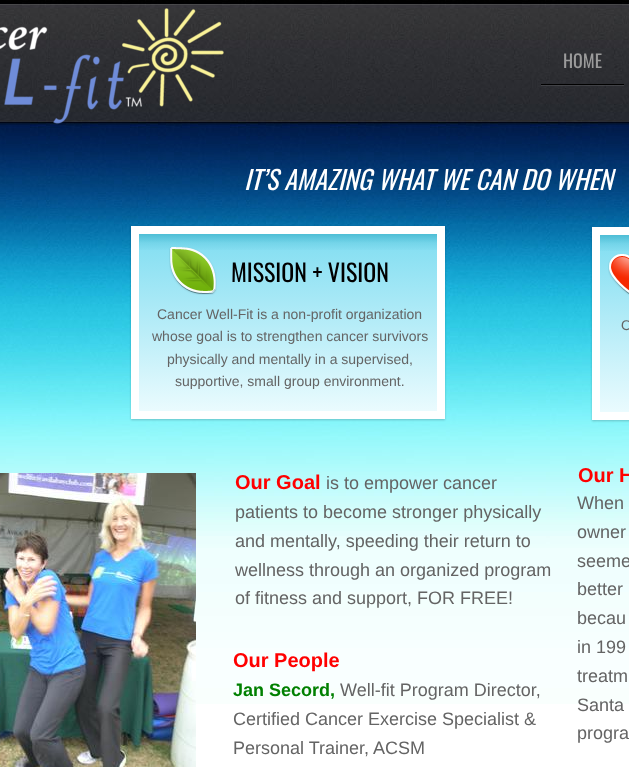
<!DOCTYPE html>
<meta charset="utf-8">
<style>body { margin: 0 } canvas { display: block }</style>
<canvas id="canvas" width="629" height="767"></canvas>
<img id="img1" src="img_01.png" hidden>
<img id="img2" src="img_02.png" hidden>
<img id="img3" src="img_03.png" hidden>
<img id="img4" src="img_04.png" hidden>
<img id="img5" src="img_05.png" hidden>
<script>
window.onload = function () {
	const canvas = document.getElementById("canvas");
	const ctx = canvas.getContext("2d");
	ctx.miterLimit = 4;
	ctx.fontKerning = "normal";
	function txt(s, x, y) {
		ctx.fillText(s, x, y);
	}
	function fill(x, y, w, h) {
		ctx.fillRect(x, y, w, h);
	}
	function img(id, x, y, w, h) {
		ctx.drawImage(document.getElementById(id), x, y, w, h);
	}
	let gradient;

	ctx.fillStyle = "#FFFFFF";
	fill(0, 0, 629, 767);
	img("img1", 0, 0, 629, 704);
	img("img2", 0, 8, 224, 116);
	ctx.save();
	ctx.beginPath();
	ctx.rect(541, 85, 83, 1);
	ctx.clip();
	ctx.fillStyle = "rgba(255, 255, 255, 0.1)";
	ctx.filter = "blur(0.5px)";
	ctx.beginPath();
	ctx.rect(541, 41, 83, 45);
	ctx.fill();
	ctx.filter = "none";
	ctx.restore();
	ctx.fillStyle = "#000000";
	fill(541, 84, 83, 1);
	ctx.fillStyle = "rgba(0, 0, 0, 0.2)";
	ctx.filter = "blur(1px)";
	ctx.beginPath();
	ctx.rect(131, 227, 314, 193);
	ctx.fill();
	ctx.filter = "none";
	gradient = ctx.createLinearGradient(288, 234, 288, 411);
	gradient.addColorStop(0, "#7FDDF1");
	gradient.addColorStop(1, "#EAFBFE");
	ctx.fillStyle = gradient;
	fill(139, 234, 298, 177);
	gradient = ctx.createLinearGradient(288, 234, 288, 411);
	gradient.addColorStop(0, "#4EBDD5");
	gradient.addColorStop(0.05, "rgba(78, 189, 213, 0.3)");
	gradient.addColorStop(0.1, "rgba(78, 189, 213, 0)");
	ctx.fillStyle = gradient;
	fill(139, 234, 298, 16);
	ctx.strokeStyle = "#FFFFFF";
	ctx.lineWidth = 8;
	ctx.strokeRect(135, 230, 306, 185);
	ctx.fillStyle = "rgba(0, 0, 0, 0.2)";
	ctx.filter = "blur(1px)";
	ctx.beginPath();
	ctx.rect(592, 228, 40, 193);
	ctx.fill();
	ctx.filter = "none";
	gradient = ctx.createLinearGradient(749, 235, 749, 412);
	gradient.addColorStop(0, "#7FDDF1");
	gradient.addColorStop(1, "#EAFBFE");
	ctx.fillStyle = gradient;
	fill(600, 235, 29, 177);
	gradient = ctx.createLinearGradient(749, 235, 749, 412);
	gradient.addColorStop(0, "#4EBDD5");
	gradient.addColorStop(0.05, "rgba(78, 189, 213, 0.3)");
	gradient.addColorStop(0.1, "rgba(78, 189, 213, 0)");
	ctx.fillStyle = gradient;
	fill(600, 235, 29, 16);
	ctx.strokeRect(596, 231, 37, 185);
	img("img3", 169, 247, 48, 48);
	img("img4", 608, 254, 21, 41);
	img("img5", 0, 473, 196, 294);
	ctx.font = "18px Oswald";
	ctx.fillStyle = "#9B9B9B";
	txt("HOME", 563, 68);
	ctx.font = "italic 26px Oswald";
	ctx.fillStyle = "#FFFFFF";
	txt("IT’S AMAZING WHAT WE CAN DO WHEN", 244, 190);
	ctx.font = "24px Oswald";
	ctx.fillStyle = "#000000";
	txt("MISSION + VISION", 231, 282);
	ctx.font = "14px Liberation Sans";
	ctx.fillStyle = "#646464";
	txt("Cancer Well-Fit is a non-profit organization", 157, 319);
	txt("whose goal is to strengthen cancer survivors", 152, 341);
	txt("physically and mentally in a supervised,", 167, 364);
	txt("supportive, small group environment.", 175, 386);
	txt("O", 621, 330);
	ctx.font = "bold 20px Liberation Sans";
	ctx.fillStyle = "#FF0000";
	txt("Our Goal", 235, 489);
	ctx.font = "18px Liberation Sans";
	ctx.fillStyle = "#646464";
	txt("is to empower cancer", 326, 489);
	txt("patients to become stronger physically", 235, 518);
	txt("and mentally, speeding their return to", 235, 547);
	txt("wellness through an organized program", 235, 576);
	txt("of fitness and support, FOR FREE!", 235, 604);
	ctx.font = "bold 20px Liberation Sans";
	ctx.fillStyle = "#FF0000";
	txt("Our H", 578, 482);
	txt("Our People", 233, 667);
	ctx.font = "bold 18px Liberation Sans";
	ctx.fillStyle = "#008000";
	txt("Jan Secord,", 233, 696);
	ctx.font = "18px Liberation Sans";
	ctx.fillStyle = "#646464";
	txt("Well-fit Program Director,", 340, 696);
	txt("Certified Cancer Exercise Specialist &", 233, 725);
	txt("Personal Trainer, ACSM", 233, 754);
	txt("When", 577, 509);
	txt("owner", 577, 538);
	txt("seeme", 577, 567);
	txt("better", 577, 595);
	txt("becau", 577, 624);
	txt("in 199", 577, 653);
	txt("treatm", 577, 682);
	txt("Santa", 577, 711);
	txt("progra", 577, 739);
};
</script>
